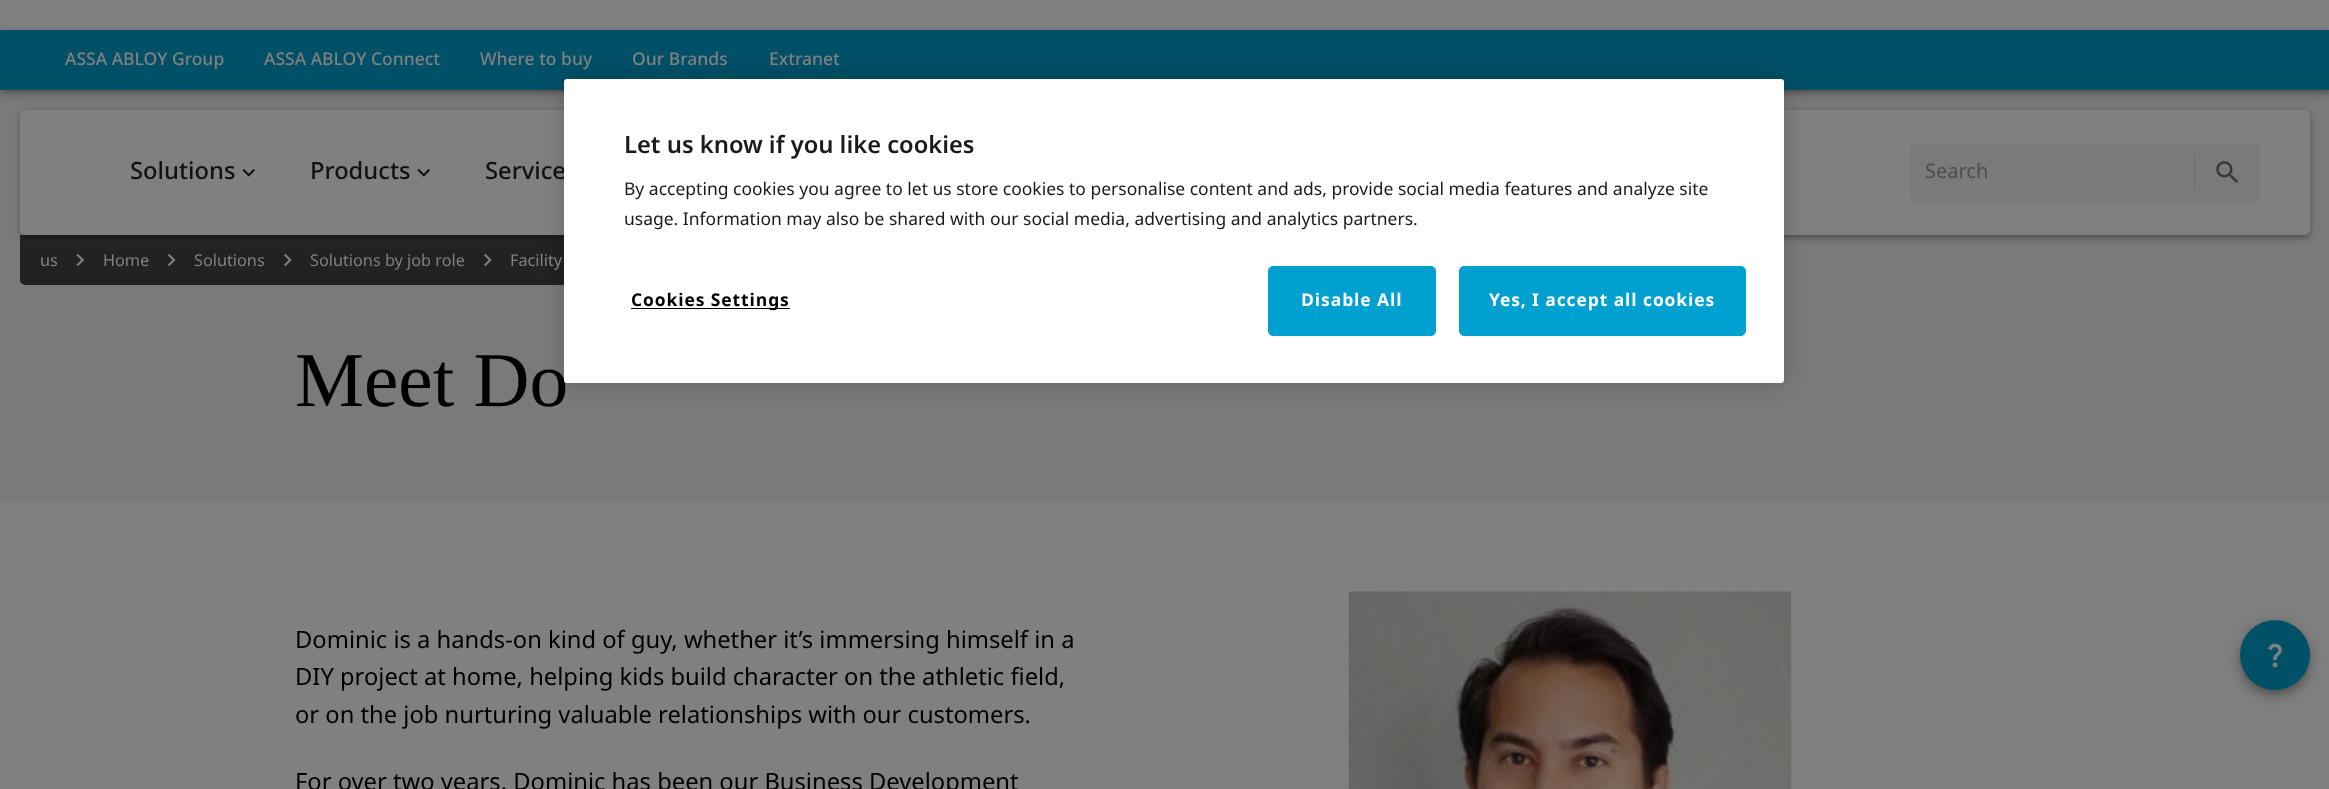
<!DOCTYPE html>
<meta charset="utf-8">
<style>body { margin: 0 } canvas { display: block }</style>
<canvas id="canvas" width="2329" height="789"></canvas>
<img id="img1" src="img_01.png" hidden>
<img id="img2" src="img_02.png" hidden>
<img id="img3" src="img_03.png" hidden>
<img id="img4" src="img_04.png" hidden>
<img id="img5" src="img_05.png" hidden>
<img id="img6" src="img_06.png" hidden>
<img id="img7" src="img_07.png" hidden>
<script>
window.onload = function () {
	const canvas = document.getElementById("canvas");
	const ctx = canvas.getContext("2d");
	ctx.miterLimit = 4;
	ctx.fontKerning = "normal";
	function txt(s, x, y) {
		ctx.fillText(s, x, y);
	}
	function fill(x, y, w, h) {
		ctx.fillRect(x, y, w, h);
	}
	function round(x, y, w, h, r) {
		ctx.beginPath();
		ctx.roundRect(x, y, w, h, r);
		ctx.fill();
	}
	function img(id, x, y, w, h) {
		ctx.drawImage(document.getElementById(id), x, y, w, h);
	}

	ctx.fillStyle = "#808080";
	fill(0, 0, 2329, 789);
	ctx.fillStyle = "#7A7A7A";
	fill(0, 90, 2329, 411);
	ctx.fillStyle = "rgba(0, 0, 0, 0.12)";
	ctx.filter = "blur(6px)";
	ctx.beginPath();
	ctx.rect(0, 31, 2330, 60);
	ctx.fill();
	ctx.filter = "none";
	ctx.fillStyle = "rgba(0, 0, 0, 0.14)";
	ctx.filter = "blur(3px)";
	ctx.beginPath();
	ctx.rect(0, 35, 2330, 60);
	ctx.fill();
	ctx.filter = "none";
	ctx.fillStyle = "rgba(0, 0, 0, 0.2)";
	ctx.filter = "blur(2.5px)";
	ctx.beginPath();
	ctx.rect(1, 34, 2328, 57);
	ctx.fill();
	ctx.filter = "none";
	ctx.fillStyle = "#005068";
	fill(0, 30, 2329, 60);
	ctx.fillStyle = "rgba(0, 0, 0, 0.12)";
	ctx.filter = "blur(5px)";
	ctx.beginPath();
	ctx.roundRect(20, 111, 2290, 125, 5);
	ctx.fill();
	ctx.filter = "none";
	ctx.fillStyle = "rgba(0, 0, 0, 0.14)";
	ctx.filter = "blur(2.5px)";
	ctx.beginPath();
	ctx.roundRect(20, 114, 2290, 125, 5);
	ctx.fill();
	ctx.filter = "none";
	ctx.fillStyle = "rgba(0, 0, 0, 0.2)";
	ctx.filter = "blur(2px)";
	ctx.beginPath();
	ctx.roundRect(23, 116, 2285, 120, 2.5);
	ctx.fill();
	ctx.filter = "none";
	ctx.fillStyle = "#808080";
	round(20, 110, 2290, 125, 5);
	img("img1", 242, 169, 13, 8);
	img("img1", 417, 169, 13, 8);
	ctx.fillStyle = "#7A7A7A";
	round(1910, 143, 350, 60, 5);
	ctx.fillStyle = "#6C6C6C";
	fill(2194, 155, 1, 35);
	img("img2", 2216, 161, 22, 22);
	ctx.fillStyle = "rgba(13, 13, 13, 0.8)";
	ctx.beginPath();
	ctx.roundRect(20, 235, 1111, 50, [0, 0, 5, 5]);
	ctx.fill();
	img("img3", 76, 253, 8, 14);
	img("img4", 167, 253, 9, 14);
	img("img5", 284, 253, 8, 14);
	img("img5", 484, 253, 8, 14);
	img("img6", 1348, 591, 444, 198);
	ctx.fillStyle = "rgba(0, 0, 0, 0.12)";
	ctx.filter = "blur(11px)";
	ctx.beginPath();
	ctx.roundRect(2240, 621, 70, 70, 35);
	ctx.fill();
	ctx.filter = "none";
	ctx.fillStyle = "rgba(0, 0, 0, 0.14)";
	ctx.filter = "blur(6px)";
	ctx.beginPath();
	ctx.roundRect(2240, 628, 70, 70, 35);
	ctx.fill();
	ctx.filter = "none";
	ctx.fillStyle = "rgba(0, 0, 0, 0.2)";
	ctx.filter = "blur(3px)";
	ctx.beginPath();
	ctx.roundRect(2241, 625, 68, 68, 34);
	ctx.fill();
	ctx.filter = "none";
	ctx.fillStyle = "#005068";
	ctx.beginPath();
	ctx.arc(2275, 655, 35, 0, Math.PI * 2);
	ctx.fill();
	img("img7", 2268, 643, 14, 25);
	ctx.fillStyle = "rgba(0, 0, 0, 0.2)";
	ctx.filter = "blur(11px)";
	ctx.beginPath();
	ctx.roundRect(564, 79, 1220, 304, 3);
	ctx.fill();
	ctx.filter = "none";
	ctx.font = "500 17.5px Noto Sans";
	ctx.fillStyle = "#808080";
	txt("ASSA ABLOY Group", 65, 65);
	txt("ASSA ABLOY Connect", 264, 65);
	txt("Where to buy", 480, 65);
	txt("Our Brands", 632, 65);
	txt("Extranet", 769, 65);
	ctx.font = "500 23.75px Noto Sans";
	ctx.fillStyle = "#111111";
	txt("Solutions", 130, 179);
	txt("Products", 310, 179);
	txt("Service", 485, 179);
	ctx.font = "20px Noto Sans";
	ctx.fillStyle = "#4E4E4E";
	txt("Search", 1925, 178);
	ctx.font = "16.25px Noto Sans";
	ctx.fillStyle = "#808080";
	txt("us", 40, 266);
	txt("Home", 103, 266);
	txt("Solutions", 194, 266);
	txt("Solutions by job role", 310, 266);
	txt("Facility", 510, 266);
	ctx.font = "77.5px Liberation Serif";
	ctx.fillStyle = "#000000";
	txt("Meet Do", 295, 406);
	ctx.font = "23.75px Noto Sans";
	txt("Dominic is a hands-on kind of guy, whether it’s immersing himself in a", 295, 648);
	txt("DIY project at home, helping kids build character on the athletic field,", 295, 685);
	txt("or on the job nurturing valuable relationships with our customers.", 295, 723);
	txt("For over two years, Dominic has been our Business Development", 295, 790);
	ctx.fillStyle = "#FFFFFF";
	round(564, 79, 1220, 304, 3);
	ctx.font = "600 23.75px Noto Sans";
	ctx.fillStyle = "#1A1A1A";
	txt("Let us know if you like cookies", 624, 153);
	ctx.font = "17.5px Noto Sans";
	txt("By accepting cookies you agree to let us store cookies to personalise content and ads, provide social media features and analyze site", 624, 195);
	txt("usage. Information may also be shared with our social media, advertising and analytics partners.", 624, 225);
	ctx.fillStyle = "#000000";
	fill(631, 308, 159, 1);
	ctx.letterSpacing = "0.9px";
	ctx.font = "bold 17.5px Noto Sans";
	txt("Cookies Settings", 631, 306);
	ctx.fillStyle = "#00A0D0";
	ctx.beginPath();
	ctx.roundRect(1268.5, 266.5, 167, 69, 4.5);
	ctx.fill();
	ctx.strokeStyle = "#00A0D0";
	ctx.stroke();
	ctx.fillStyle = "#FFFFFF";
	txt("Disable All", 1301, 306);
	ctx.fillStyle = "#00A0D0";
	ctx.beginPath();
	ctx.roundRect(1459.5, 266.5, 286, 69, 4.5);
	ctx.fill();
	ctx.stroke();
	ctx.fillStyle = "#FFFFFF";
	txt("Yes, I accept all cookies", 1489, 306);
};
</script>
